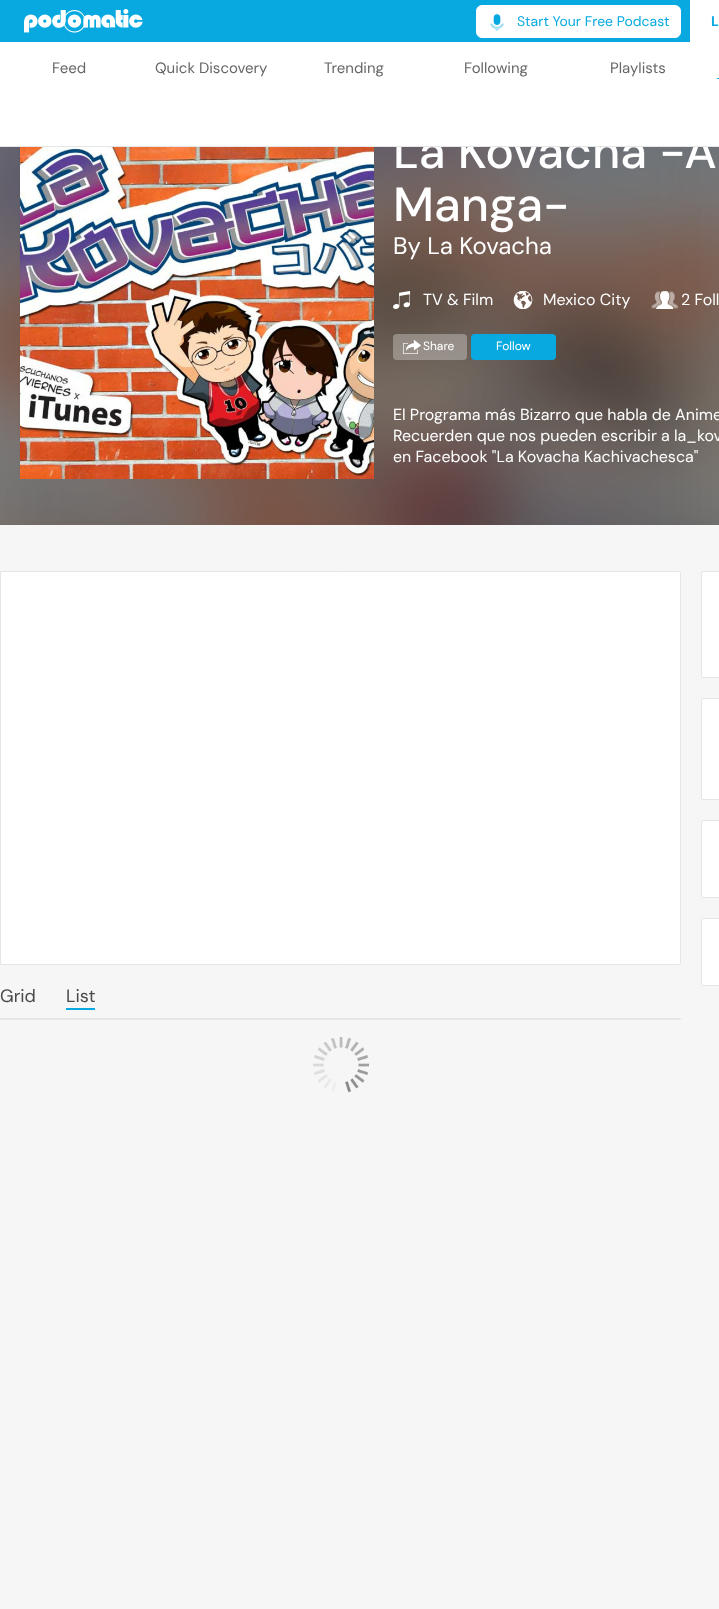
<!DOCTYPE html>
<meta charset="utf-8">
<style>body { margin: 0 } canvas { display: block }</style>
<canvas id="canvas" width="719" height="1609"></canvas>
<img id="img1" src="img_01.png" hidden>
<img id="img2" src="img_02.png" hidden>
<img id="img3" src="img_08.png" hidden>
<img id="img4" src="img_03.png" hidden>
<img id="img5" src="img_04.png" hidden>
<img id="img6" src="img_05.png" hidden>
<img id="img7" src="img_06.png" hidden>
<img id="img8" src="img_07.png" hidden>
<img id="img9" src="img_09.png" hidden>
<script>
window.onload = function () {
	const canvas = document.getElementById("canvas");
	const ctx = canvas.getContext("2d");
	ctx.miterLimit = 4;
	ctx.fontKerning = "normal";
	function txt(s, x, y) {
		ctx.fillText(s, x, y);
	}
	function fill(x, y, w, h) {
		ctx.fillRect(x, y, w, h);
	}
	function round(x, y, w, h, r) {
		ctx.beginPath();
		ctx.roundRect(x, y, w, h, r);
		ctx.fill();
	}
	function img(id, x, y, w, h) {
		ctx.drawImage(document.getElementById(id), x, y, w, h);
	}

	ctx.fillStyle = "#F6F6F6";
	fill(0, 0, 719, 1609);
	ctx.fillStyle = "#878787";
	fill(0, 147, 719, 378);
	ctx.fillStyle = "#07A9E0";
	fill(0, 0, 690, 42);
	img("img1", 24, 9, 119, 24);
	ctx.fillStyle = "#FFFFFF";
	ctx.beginPath();
	ctx.roundRect(476.5, 5.5, 204, 32, 5.5);
	ctx.fill();
	ctx.strokeStyle = "#FFFFFF";
	ctx.stroke();
	img("img2", 490, 14, 14, 17);
	fill(690, 0, 29, 42);
	fill(0, 42, 719, 104);
	ctx.fillStyle = "#07A9E0";
	fill(717, 78, 2, 1);
	img("img3", 0, 147, 719, 378);
	img("img4", 20, 147, 354, 332);
	img("img5", 393, 291, 18, 18);
	img("img6", 513, 291, 20, 18);
	img("img7", 651, 291, 27, 18);
	ctx.fillStyle = "rgba(255, 255, 255, 0.3)";
	round(393, 334, 74, 26, 4);
	img("img8", 403, 340, 18, 14);
	ctx.fillStyle = "#07A9E0";
	round(471, 334, 85, 26, 4);
	ctx.fillStyle = "#FFFFFF";
	ctx.beginPath();
	ctx.roundRect(701.5, 571.5, 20, 106, 1.5);
	ctx.fill();
	ctx.strokeStyle = "#E5E5E5";
	ctx.stroke();
	ctx.beginPath();
	ctx.roundRect(701.5, 698.5, 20, 101, 1.5);
	ctx.fill();
	ctx.stroke();
	ctx.beginPath();
	ctx.roundRect(701.5, 820.5, 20, 77, 1.5);
	ctx.fill();
	ctx.stroke();
	ctx.beginPath();
	ctx.roundRect(701.5, 918.5, 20, 67, 1.5);
	ctx.fill();
	ctx.stroke();
	ctx.beginPath();
	ctx.roundRect(0.5, 571.5, 680, 393, 1.5);
	ctx.fill();
	ctx.stroke();
	ctx.fillStyle = "#07A9E0";
	fill(66, 1008, 29, 2);
	ctx.fillStyle = "#E5E5E5";
	round(0, 1018, 681, 2, 1);
	img("img9", 313, 1037, 56, 56);
	ctx.font = "14px DM Sans";
	ctx.fillStyle = "#07A9E0";
	txt("Start Your Free Podcast", 517, 26);
	ctx.font = "bold 14px DM Sans";
	txt("L", 711, 26);
	ctx.font = "15px DM Sans";
	ctx.fillStyle = "#666666";
	txt("Feed", 52, 73);
	txt("Quick Discovery", 155, 73);
	txt("Trending", 324, 73);
	txt("Following", 464, 73);
	txt("Playlists", 610, 73);
	ctx.font = "500 48px DM Sans";
	ctx.fillStyle = "#FFFFFF";
	txt("La Kovacha -A", 393, 168);
	ctx.fillStyle = "#E6E6E6";
	fill(0, 146, 719, 1);
	ctx.fillStyle = "#FFFFFF";
	txt("Manga-", 393, 221);
	ctx.font = "24px DM Sans";
	txt("By La Kovacha", 393, 254);
	ctx.font = "16px DM Sans";
	txt("TV & Film", 423, 305);
	txt("Mexico City", 543, 305);
	txt("2 Foll", 681, 305);
	ctx.font = "12px DM Sans";
	txt("Share", 423, 350);
	txt("Follow", 496, 350);
	ctx.font = "16px DM Sans";
	txt("El Programa más Bizarro que habla de Anime", 393, 420);
	txt("Recuerden que nos pueden escribir a la_kov", 393, 441);
	txt("en Facebook \"La Kovacha Kachivachesca\"", 393, 462);
	ctx.font = "18px DM Sans";
	ctx.fillStyle = "#4A4A4A";
	txt("Grid", 0, 1002);
	txt("List", 66, 1002);
};
</script>
